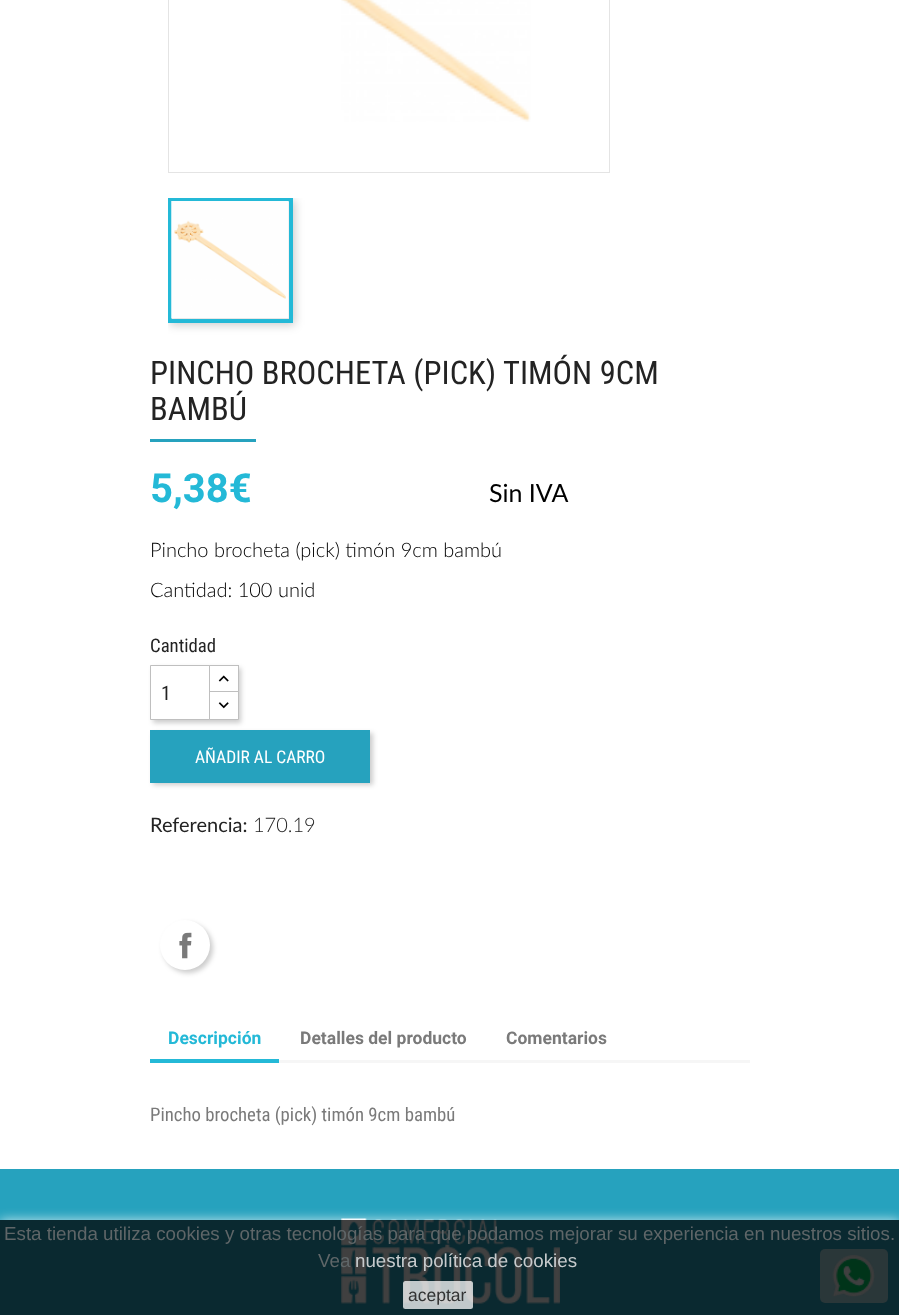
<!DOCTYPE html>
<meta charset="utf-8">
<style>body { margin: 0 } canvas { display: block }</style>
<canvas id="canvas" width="899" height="1315"></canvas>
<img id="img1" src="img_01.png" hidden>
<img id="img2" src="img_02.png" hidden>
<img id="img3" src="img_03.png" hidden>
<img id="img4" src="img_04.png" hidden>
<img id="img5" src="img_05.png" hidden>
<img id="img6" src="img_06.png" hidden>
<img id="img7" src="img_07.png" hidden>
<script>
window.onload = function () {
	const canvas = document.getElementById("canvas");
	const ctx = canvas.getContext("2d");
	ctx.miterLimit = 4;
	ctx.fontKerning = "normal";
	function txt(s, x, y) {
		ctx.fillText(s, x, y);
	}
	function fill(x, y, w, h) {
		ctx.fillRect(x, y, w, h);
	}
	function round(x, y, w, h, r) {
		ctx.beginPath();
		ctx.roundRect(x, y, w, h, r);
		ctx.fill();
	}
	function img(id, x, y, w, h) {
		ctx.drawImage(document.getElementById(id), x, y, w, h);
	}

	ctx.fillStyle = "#FFFFFF";
	fill(0, 0, 899, 1315);
	ctx.strokeStyle = "#E4E4E4";
	ctx.strokeRect(168.5, -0.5, 441, 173);
	img("img1", 341, 0, 190, 122);
	ctx.save();
	ctx.beginPath();
	ctx.rect(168, 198, 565, 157);
	ctx.clip();
	ctx.fillStyle = "rgba(0, 0, 0, 0.2)";
	ctx.filter = "blur(5px)";
	ctx.beginPath();
	ctx.rect(170, 200, 125, 125);
	ctx.fill();
	ctx.filter = "none";
	ctx.restore();
	ctx.strokeStyle = "#24B9D7";
	ctx.lineWidth = 4;
	ctx.strokeRect(170, 200, 121, 121);
	img("img2", 171, 201, 118, 118);
	ctx.fillStyle = "#26A2BE";
	fill(150, 439, 106, 3);
	ctx.fillStyle = "rgba(0, 0, 0, 0.2)";
	ctx.filter = "blur(2.5px)";
	ctx.beginPath();
	ctx.rect(153, 733, 220, 52);
	ctx.fill();
	ctx.filter = "none";
	ctx.fillStyle = "#26A2BE";
	fill(150, 730, 220, 53);
	ctx.fillStyle = "rgba(0, 0, 0, 0.2)";
	ctx.filter = "blur(2.5px)";
	ctx.beginPath();
	ctx.rect(153, 668, 88, 55);
	ctx.fill();
	ctx.filter = "none";
	ctx.fillStyle = "#FFFFFF";
	fill(210, 666, 28, 25);
	ctx.strokeStyle = "#BFBFBF";
	ctx.lineWidth = 1;
	ctx.strokeRect(209.5, 665.5, 29, 28);
	ctx.beginPath();
	ctx.rect(209.5, 691.5, 29, 28);
	ctx.fill();
	ctx.stroke();
	ctx.beginPath();
	ctx.rect(150.5, 665.5, 59, 54);
	ctx.fill();
	ctx.stroke();
	img("img3", 218, 675, 11, 7);
	img("img4", 218, 702, 11, 7);
	ctx.fillStyle = "rgba(0, 0, 0, 0.2)";
	ctx.filter = "blur(2.5px)";
	ctx.beginPath();
	ctx.roundRect(163, 923, 50, 50, 25);
	ctx.fill();
	ctx.filter = "none";
	ctx.fillStyle = "#FFFFFF";
	ctx.beginPath();
	ctx.arc(185, 945, 25, 0, Math.PI * 2);
	ctx.fill();
	img("img5", 179, 932, 13, 27);
	ctx.fillStyle = "#F6F6F6";
	fill(279, 1060, 471, 3);
	ctx.fillStyle = "#24B9D7";
	fill(150, 1059, 129, 4);
	ctx.fillStyle = "#26A2BE";
	fill(0, 1169, 899, 51);
	ctx.fillStyle = "#0A2930";
	fill(0, 1220, 899, 95);
	img("img6", 341, 1218, 219, 86);
	ctx.fillStyle = "#2A3739";
	round(820, 1249, 68, 54, 5);
	img("img7", 832, 1255, 43, 42);
	ctx.save();
	ctx.beginPath();
	ctx.rect(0, 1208, 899, 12);
	ctx.clip();
	ctx.fillStyle = "rgba(255, 255, 255, 0.75)";
	ctx.filter = "blur(6px)";
	ctx.beginPath();
	ctx.rect(0, 1220, 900, 95);
	ctx.fill();
	ctx.filter = "none";
	ctx.restore();
	ctx.fillStyle = "rgba(255, 255, 255, 0.75)";
	round(403, 1281, 70, 28, 2.5);
	ctx.font = "32.5px Roboto Condensed";
	ctx.fillStyle = "#232323";
	txt("PINCHO BROCHETA (PICK) TIMÓN 9CM", 150, 384);
	txt("BAMBÚ", 150, 420);
	ctx.font = "bold 40px Roboto";
	ctx.fillStyle = "#24B9D7";
	txt("5,38€", 150, 502);
	ctx.font = "25px Lato";
	ctx.fillStyle = "#000000";
	txt("Sin IVA", 489, 502);
	ctx.font = "300 20px Lato";
	txt("Pincho brocheta (pick) timón 9cm bambú", 150, 557);
	txt("Cantidad: 100 unid", 150, 597);
	ctx.font = "18.75px Roboto Condensed";
	ctx.fillStyle = "#232323";
	txt("Cantidad", 150, 652);
	ctx.font = "20px Roboto Condensed";
	txt("1", 161, 700);
	ctx.font = "17.5px Roboto Condensed";
	ctx.fillStyle = "#FFFFFF";
	txt("AÑADIR AL CARRO", 195, 763);
	ctx.font = "20px Lato";
	ctx.fillStyle = "#232323";
	txt("Referencia:", 150, 832);
	ctx.font = "300 20px Lato";
	txt("170.19", 253, 832);
	ctx.font = "bold 17.5px Roboto";
	ctx.fillStyle = "#24B9D7";
	txt("Descripción", 168, 1044);
	ctx.fillStyle = "#7A7A7A";
	txt("Detalles del producto", 300, 1044);
	txt("Comentarios", 506, 1044);
	ctx.font = "18.75px Roboto Condensed";
	txt("Pincho brocheta (pick) timón 9cm bambú", 150, 1121);
	ctx.font = "18.75px Liberation Sans";
	ctx.fillStyle = "#5F6668";
	txt("Esta tienda utiliza cookies y otras tecnologías para que podamos mejorar su experiencia en nuestros sitios.", 4, 1240);
	txt("Vea", 318, 1267);
	ctx.fillStyle = "#C7CBCD";
	txt("nuestra política de cookies", 355, 1267);
	ctx.font = "17.5px Liberation Sans";
	ctx.fillStyle = "#323333";
	txt("aceptar", 408, 1301);
};
</script>
